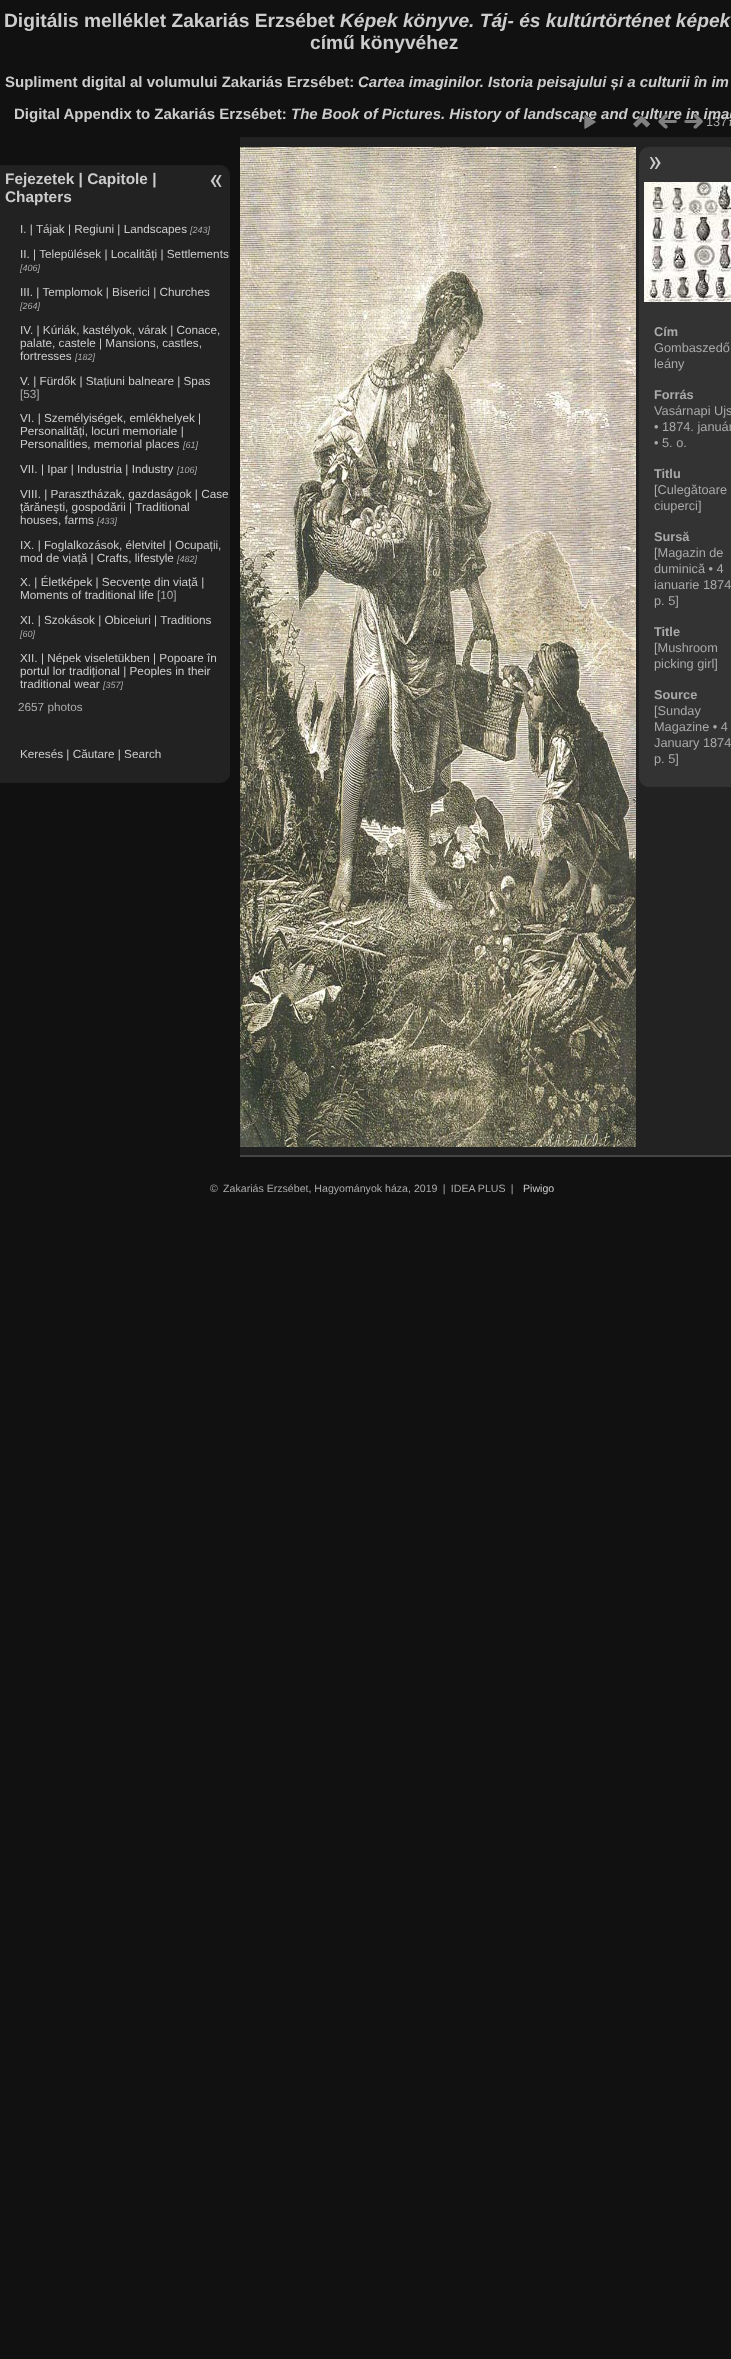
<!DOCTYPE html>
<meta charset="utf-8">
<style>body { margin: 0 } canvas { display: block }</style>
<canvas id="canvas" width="731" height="2359"></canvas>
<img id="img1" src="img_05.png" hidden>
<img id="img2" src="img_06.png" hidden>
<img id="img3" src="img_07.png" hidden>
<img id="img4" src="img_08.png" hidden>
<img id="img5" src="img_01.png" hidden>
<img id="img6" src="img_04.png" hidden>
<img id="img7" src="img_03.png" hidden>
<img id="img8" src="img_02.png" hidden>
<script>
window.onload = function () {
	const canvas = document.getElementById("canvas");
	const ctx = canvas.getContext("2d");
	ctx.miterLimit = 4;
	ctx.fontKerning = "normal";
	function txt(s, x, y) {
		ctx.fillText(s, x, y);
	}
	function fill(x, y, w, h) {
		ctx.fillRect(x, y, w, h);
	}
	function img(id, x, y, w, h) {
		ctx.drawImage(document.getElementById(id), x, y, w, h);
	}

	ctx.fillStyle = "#111111";
	fill(0, 0, 731, 2359);
	ctx.fillStyle = "#222222";
	ctx.beginPath();
	ctx.roundRect(0, 165, 230, 618, [0, 10, 10, 0]);
	ctx.fill();
	fill(240, 137, 491, 1018);
	ctx.fillStyle = "#444444";
	fill(240, 1155, 491, 2);
	img("img1", 240, 147, 396, 1000);
	ctx.fillStyle = "#333333";
	ctx.beginPath();
	ctx.moveTo(649, 147);
	ctx.lineTo(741, 147);
	ctx.lineTo(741, 787);
	ctx.lineTo(649, 787);
	ctx.bezierCurveTo(643.5, 787, 639, 782.5, 639, 777);
	ctx.lineTo(639, 157);
	ctx.bezierCurveTo(639, 151.5, 643.5, 147, 649, 147);
	ctx.closePath();
	ctx.fill();
	img("img2", 649, 157, 12, 12);
	img("img3", 644, 182, 87, 120);
	img("img4", 210, 175, 12, 12);
	ctx.font = "bold 19.2px Liberation Sans";
	ctx.fillStyle = "#CCCCCC";
	txt("Digitális melléklet Zakariás Erzsébet", 4, 27);
	ctx.font = "italic bold 19.2px Liberation Sans";
	txt("Képek könyve. Táj- és kultúrtörténet képek", 340, 27);
	ctx.font = "bold 19.2px Liberation Sans";
	txt("című könyvéhez", 310, 49);
	ctx.font = "bold 15px Liberation Sans";
	txt("Supliment digital al volumului Zakariás Erzsébet:", 5, 87);
	ctx.font = "italic bold 15px Liberation Sans";
	txt("Cartea imaginilor. Istoria peisajului și a culturii în im", 358, 87);
	ctx.font = "bold 15px Liberation Sans";
	txt("Digital Appendix to Zakariás Erzsébet:", 14, 119);
	ctx.font = "bold 15.4px Liberation Sans";
	txt("Fejezetek | Capitole |", 5, 184);
	txt("Chapters", 5, 202);
	ctx.font = "11.75px Liberation Sans";
	txt("I. | Tájak | Regiuni | Landscapes", 20, 233);
	ctx.font = "italic 9px Liberation Sans";
	ctx.fillStyle = "#AAAAAA";
	txt("[243]", 190, 233);
	ctx.font = "11.75px Liberation Sans";
	ctx.fillStyle = "#CCCCCC";
	txt("II. | Települések | Localități | Settlements", 20, 258);
	ctx.font = "italic 9px Liberation Sans";
	ctx.fillStyle = "#AAAAAA";
	txt("[406]", 20, 271);
	ctx.font = "11.75px Liberation Sans";
	ctx.fillStyle = "#CCCCCC";
	txt("III. | Templomok | Biserici | Churches", 20, 296);
	ctx.font = "italic 9px Liberation Sans";
	ctx.fillStyle = "#AAAAAA";
	txt("[264]", 20, 309);
	ctx.font = "11.75px Liberation Sans";
	ctx.fillStyle = "#CCCCCC";
	txt("IV. | Kúriák, kastélyok, várak | Conace,", 20, 334);
	txt("palate, castele | Mansions, castles,", 20, 347);
	txt("fortresses", 20, 360);
	ctx.font = "italic 9px Liberation Sans";
	ctx.fillStyle = "#AAAAAA";
	txt("[182]", 75, 360);
	ctx.font = "11.75px Liberation Sans";
	ctx.fillStyle = "#CCCCCC";
	txt("V. | Fürdők | Stațiuni balneare | Spas", 20, 385);
	ctx.fillStyle = "#AAAAAA";
	txt("[53]", 20, 398);
	ctx.fillStyle = "#CCCCCC";
	txt("VI. | Személyiségek, emlékhelyek |", 20, 422);
	txt("Personalități, locuri memoriale |", 20, 435);
	txt("Personalities, memorial places", 20, 448);
	ctx.font = "italic 9px Liberation Sans";
	ctx.fillStyle = "#AAAAAA";
	txt("[61]", 183, 448);
	ctx.font = "11.75px Liberation Sans";
	ctx.fillStyle = "#CCCCCC";
	txt("VII. | Ipar | Industria | Industry", 20, 473);
	ctx.font = "italic 9px Liberation Sans";
	ctx.fillStyle = "#AAAAAA";
	txt("[106]", 177, 473);
	ctx.font = "11.75px Liberation Sans";
	ctx.fillStyle = "#CCCCCC";
	txt("VIII. | Parasztházak, gazdaságok | Case", 20, 498);
	txt("țărănești, gospodării | Traditional", 20, 511);
	txt("houses, farms", 20, 524);
	ctx.font = "italic 9px Liberation Sans";
	ctx.fillStyle = "#AAAAAA";
	txt("[433]", 97, 524);
	ctx.font = "11.75px Liberation Sans";
	ctx.fillStyle = "#CCCCCC";
	txt("IX. | Foglalkozások, életvitel | Ocupații,", 20, 549);
	txt("mod de viață | Crafts, lifestyle", 20, 562);
	ctx.font = "italic 9px Liberation Sans";
	ctx.fillStyle = "#AAAAAA";
	txt("[482]", 177, 562);
	ctx.font = "11.75px Liberation Sans";
	ctx.fillStyle = "#CCCCCC";
	txt("X. | Életképek | Secvențe din viață |", 20, 586);
	txt("Moments of traditional life", 20, 599);
	ctx.fillStyle = "#AAAAAA";
	txt("[10]", 157, 599);
	ctx.fillStyle = "#CCCCCC";
	txt("XI. | Szokások | Obiceiuri | Traditions", 20, 624);
	ctx.font = "italic 9px Liberation Sans";
	ctx.fillStyle = "#AAAAAA";
	txt("[60]", 20, 637);
	ctx.font = "11.75px Liberation Sans";
	ctx.fillStyle = "#CCCCCC";
	txt("XII. | Népek viseletükben | Popoare în", 20, 662);
	txt("portul lor tradițional | Peoples in their", 20, 675);
	txt("traditional wear", 20, 688);
	ctx.font = "italic 9px Liberation Sans";
	ctx.fillStyle = "#AAAAAA";
	txt("[357]", 103, 688);
	ctx.font = "11.75px Liberation Sans";
	txt("2657 photos", 18, 711);
	ctx.fillStyle = "#CCCCCC";
	txt("Keresés | Căutare | Search", 20, 758);
	ctx.font = "12.75px Liberation Sans";
	ctx.fillStyle = "#AAAAAA";
	txt("1377", 706, 126);
	ctx.font = "italic bold 15px Liberation Sans";
	ctx.fillStyle = "#CCCCCC";
	txt("The Book of Pictures. History of landscape and culture in imag", 291, 119);
	img("img5", 584, 115, 12, 14);
	img("img6", 684, 114, 19, 15);
	img("img7", 658, 114, 19, 15);
	img("img8", 633, 115, 17, 13);
	ctx.font = "bold 12.75px Liberation Sans";
	ctx.fillStyle = "#AAAAAA";
	txt("Cím", 654, 336);
	ctx.font = "12.75px Liberation Sans";
	txt("Gombaszedő", 654, 352);
	txt("leány", 654, 368);
	ctx.font = "bold 12.75px Liberation Sans";
	txt("Forrás", 654, 399);
	ctx.font = "12.75px Liberation Sans";
	txt("Vasárnapi Ujs", 654, 415);
	txt("• 1874. január", 654, 431);
	txt("• 5. o.", 654, 447);
	ctx.font = "bold 12.75px Liberation Sans";
	txt("Titlu", 654, 478);
	ctx.font = "12.75px Liberation Sans";
	txt("[Culegătoare", 654, 494);
	txt("ciuperci]", 654, 510);
	ctx.font = "bold 12.75px Liberation Sans";
	txt("Sursă", 654, 541);
	ctx.font = "12.75px Liberation Sans";
	txt("[Magazin de", 654, 557);
	txt("duminică • 4", 654, 573);
	txt("ianuarie 1874", 654, 589);
	txt("p. 5]", 654, 605);
	ctx.font = "bold 12.75px Liberation Sans";
	txt("Title", 654, 636);
	ctx.font = "12.75px Liberation Sans";
	txt("[Mushroom", 654, 652);
	txt("picking girl]", 654, 668);
	ctx.font = "bold 12.75px Liberation Sans";
	txt("Source", 654, 699);
	ctx.font = "12.75px Liberation Sans";
	txt("[Sunday", 654, 715);
	txt("Magazine • 4", 654, 731);
	txt("January 1874", 654, 747);
	txt("p. 5]", 654, 763);
	ctx.font = "10.6px Liberation Sans";
	txt("© Zakariás Erzsébet, Hagyományok háza, 2019 | IDEA PLUS |", 210, 1192);
	ctx.fillStyle = "#CCCCCC";
	txt("Piwigo", 523, 1192);
};
</script>
